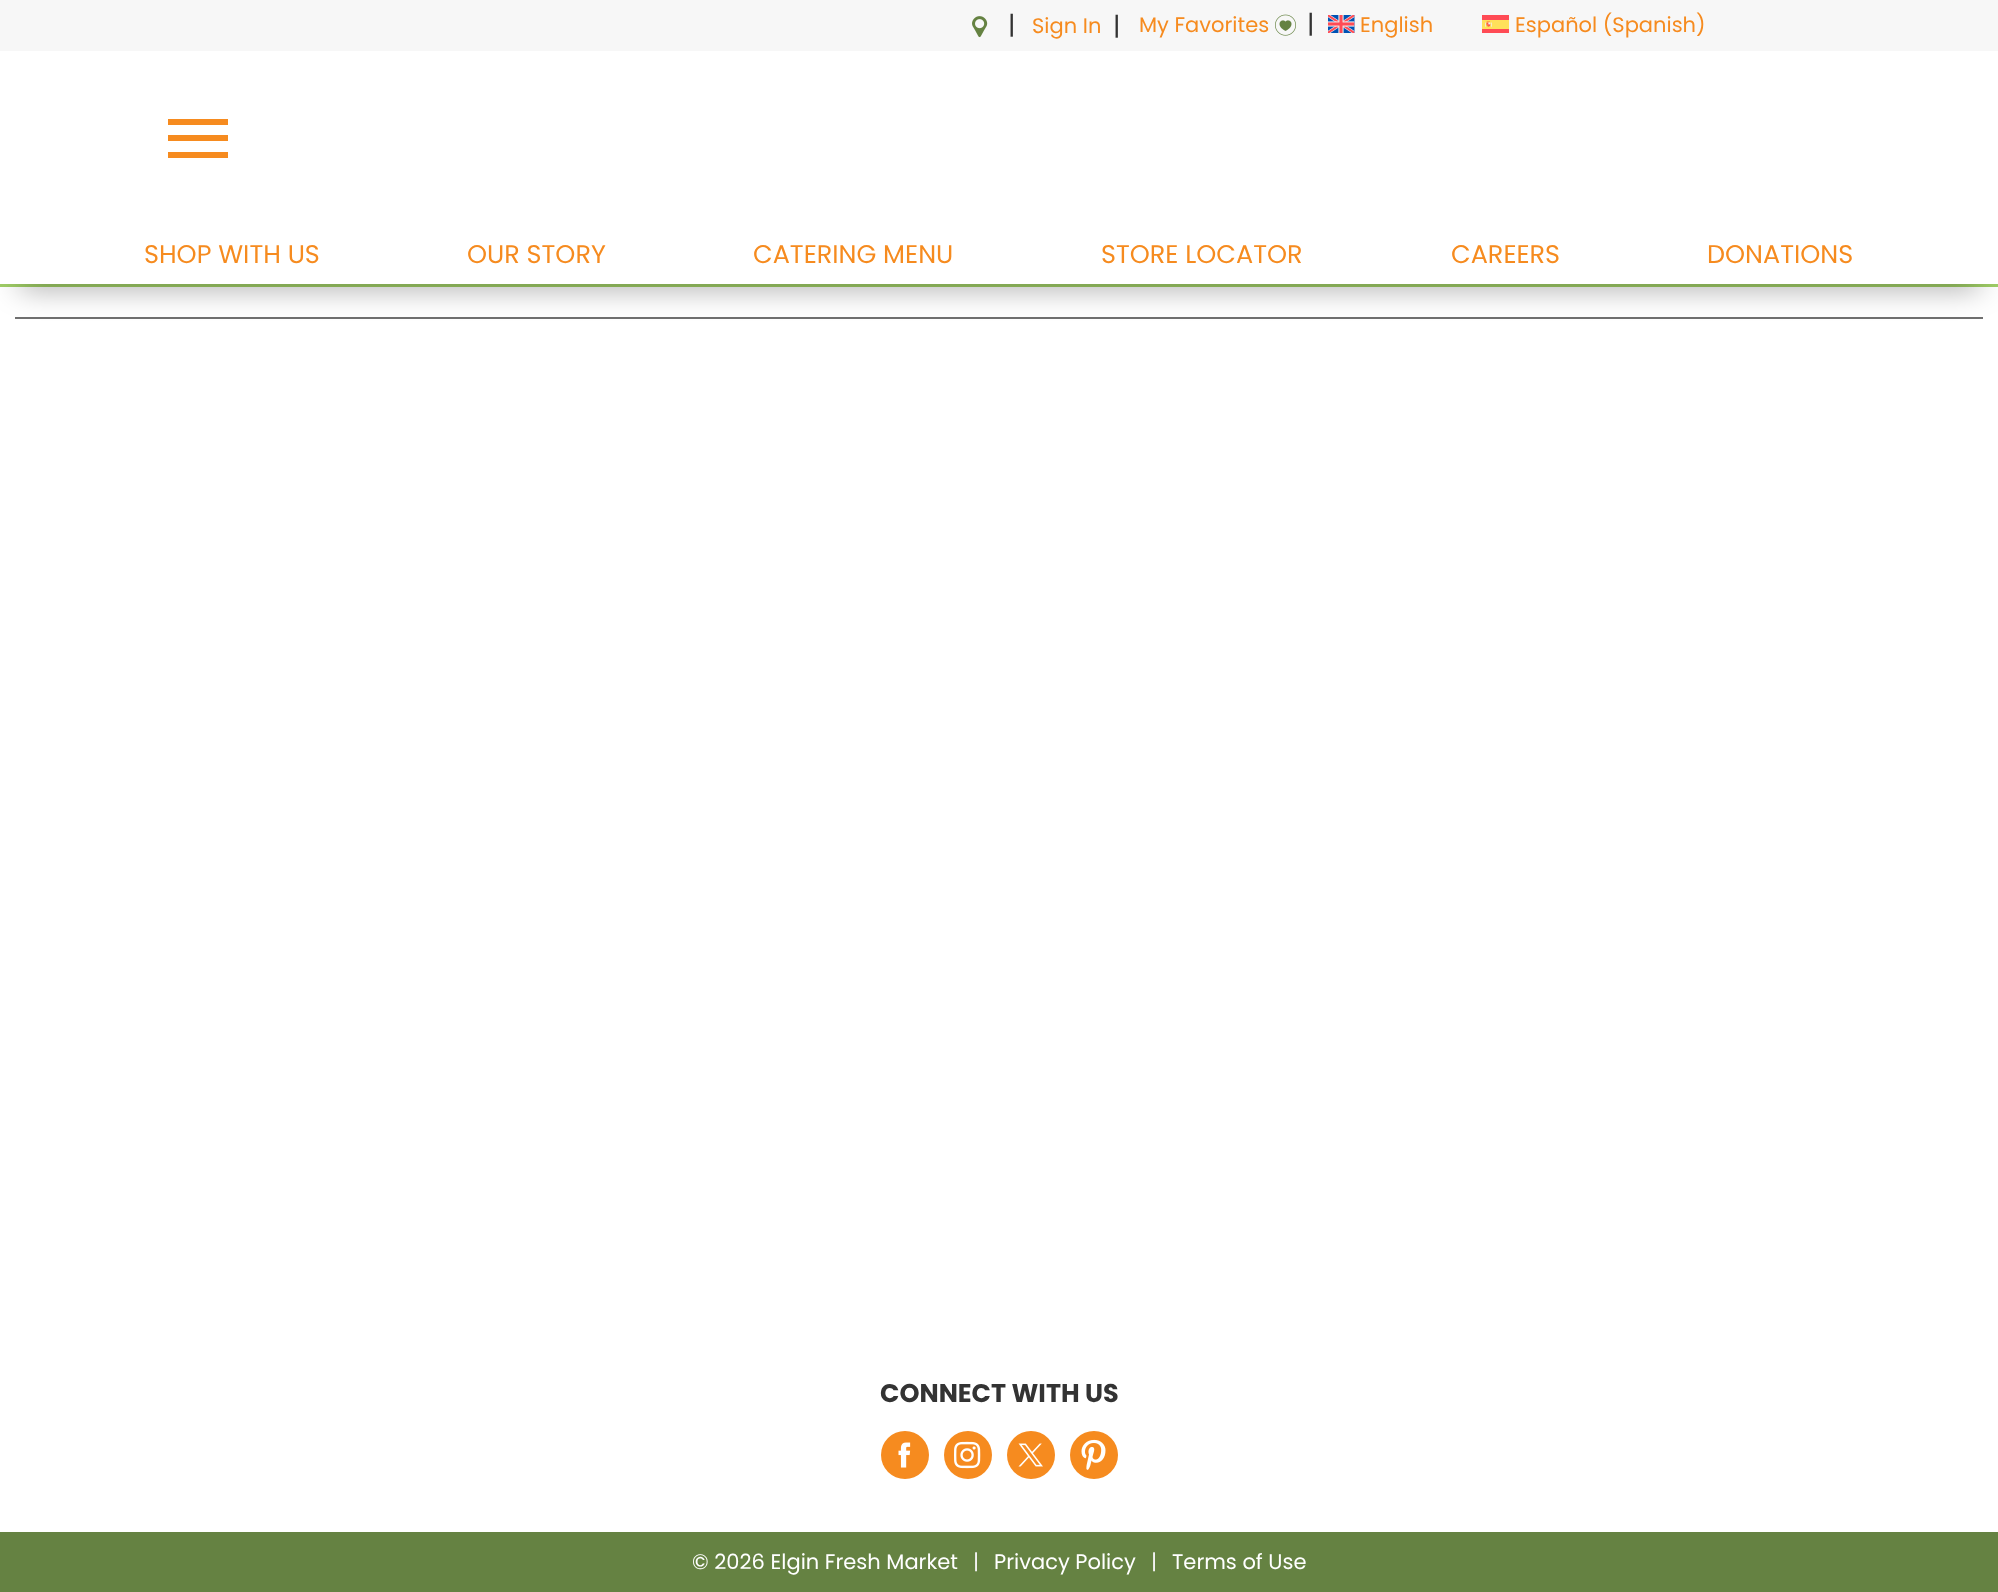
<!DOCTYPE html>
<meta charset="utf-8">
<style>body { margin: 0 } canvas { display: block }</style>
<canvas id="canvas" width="1998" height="1592"></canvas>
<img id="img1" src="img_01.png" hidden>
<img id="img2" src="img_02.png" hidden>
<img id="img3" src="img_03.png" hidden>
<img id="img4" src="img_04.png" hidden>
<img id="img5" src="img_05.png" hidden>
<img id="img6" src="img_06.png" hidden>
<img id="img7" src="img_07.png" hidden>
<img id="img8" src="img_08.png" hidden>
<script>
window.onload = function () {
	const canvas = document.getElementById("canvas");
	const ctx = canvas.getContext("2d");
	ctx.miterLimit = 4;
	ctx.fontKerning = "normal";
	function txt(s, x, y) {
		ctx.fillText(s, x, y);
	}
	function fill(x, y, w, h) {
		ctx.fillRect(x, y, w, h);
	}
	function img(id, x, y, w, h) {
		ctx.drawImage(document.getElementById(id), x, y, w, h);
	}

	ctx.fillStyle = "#FFFFFF";
	fill(0, 0, 1998, 1592);
	ctx.fillStyle = "#F7F7F7";
	fill(0, 0, 1998, 51);
	img("img1", 972, 16, 16, 22);
	img("img2", 1275, 14, 21, 22);
	img("img3", 1328, 15, 27, 18);
	img("img4", 1482, 15, 27, 18);
	ctx.fillStyle = "#F68B1F";
	fill(168, 135, 60, 6);
	fill(168, 119, 60, 6);
	fill(168, 152, 60, 6);
	ctx.fillStyle = "#A0CE67";
	fill(0, 284, 1998, 3);
	ctx.fillStyle = "#707070";
	fill(15, 317, 1968, 2);
	ctx.save();
	ctx.beginPath();
	ctx.moveTo(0, 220);
	ctx.lineTo(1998, 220);
	ctx.lineTo(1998, 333);
	ctx.lineTo(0, 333);
	ctx.closePath();
	ctx.moveTo(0, 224);
	ctx.lineTo(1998, 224);
	ctx.lineTo(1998, 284);
	ctx.lineTo(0, 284);
	ctx.closePath();
	ctx.clip("evenodd");
	ctx.fillStyle = "rgba(0, 0, 0, 0.4)";
	ctx.filter = "blur(15px)";
	ctx.beginPath();
	ctx.rect(20, 266, 1959, 21);
	ctx.fill();
	ctx.filter = "none";
	ctx.restore();
	ctx.fillStyle = "#F68B1F";
	ctx.beginPath();
	ctx.arc(905, 1455, 24, 0, Math.PI * 2);
	ctx.fill();
	img("img5", 898, 1442, 13, 26);
	ctx.beginPath();
	ctx.arc(968, 1455, 24, 0, Math.PI * 2);
	ctx.fill();
	img("img6", 954, 1441, 27, 28);
	ctx.beginPath();
	ctx.arc(1031, 1455, 24, 0, Math.PI * 2);
	ctx.fill();
	img("img7", 1018, 1443, 25, 24);
	ctx.beginPath();
	ctx.arc(1094, 1455, 24, 0, Math.PI * 2);
	ctx.fill();
	img("img8", 1081, 1439, 25, 31);
	ctx.fillStyle = "#658242";
	fill(0, 1532, 1998, 60);
	ctx.font = "25.5px Poppins";
	ctx.fillStyle = "#333333";
	txt("|", 1008, 34);
	ctx.font = "21px Poppins";
	ctx.fillStyle = "#F68B1F";
	txt("Sign In", 1032, 33);
	ctx.font = "25.5px Poppins";
	ctx.fillStyle = "#333333";
	txt("|", 1113, 35);
	ctx.font = "21px Poppins";
	ctx.fillStyle = "#F68B1F";
	txt("My Favorites", 1139, 32);
	ctx.font = "25.5px Poppins";
	ctx.fillStyle = "#333333";
	txt("|", 1307, 33);
	ctx.font = "21px Poppins";
	ctx.fillStyle = "#F68B1F";
	txt("English", 1360, 32);
	txt("Español (Spanish)", 1515, 32);
	ctx.font = "25.5px Poppins";
	txt("SHOP WITH US", 144, 263);
	txt("OUR STORY", 467, 263);
	txt("CATERING MENU", 753, 263);
	txt("STORE LOCATOR", 1101, 263);
	txt("CAREERS", 1451, 263);
	txt("DONATIONS", 1707, 263);
	ctx.font = "bold 25.5px Poppins";
	ctx.fillStyle = "#333333";
	txt("CONNECT WITH US", 880, 1402);
	ctx.font = "21px Poppins";
	ctx.fillStyle = "#FFFFFF";
	txt("© 2026 Elgin Fresh Market", 692, 1569);
	ctx.fillStyle = "#F2F2F2";
	txt("|", 973, 1569);
	ctx.fillStyle = "#FFFFFF";
	txt("Privacy Policy", 994, 1569);
	ctx.fillStyle = "#F2F2F2";
	txt("|", 1151, 1569);
	ctx.fillStyle = "#FFFFFF";
	txt("Terms of Use", 1172, 1569);
};
</script>
